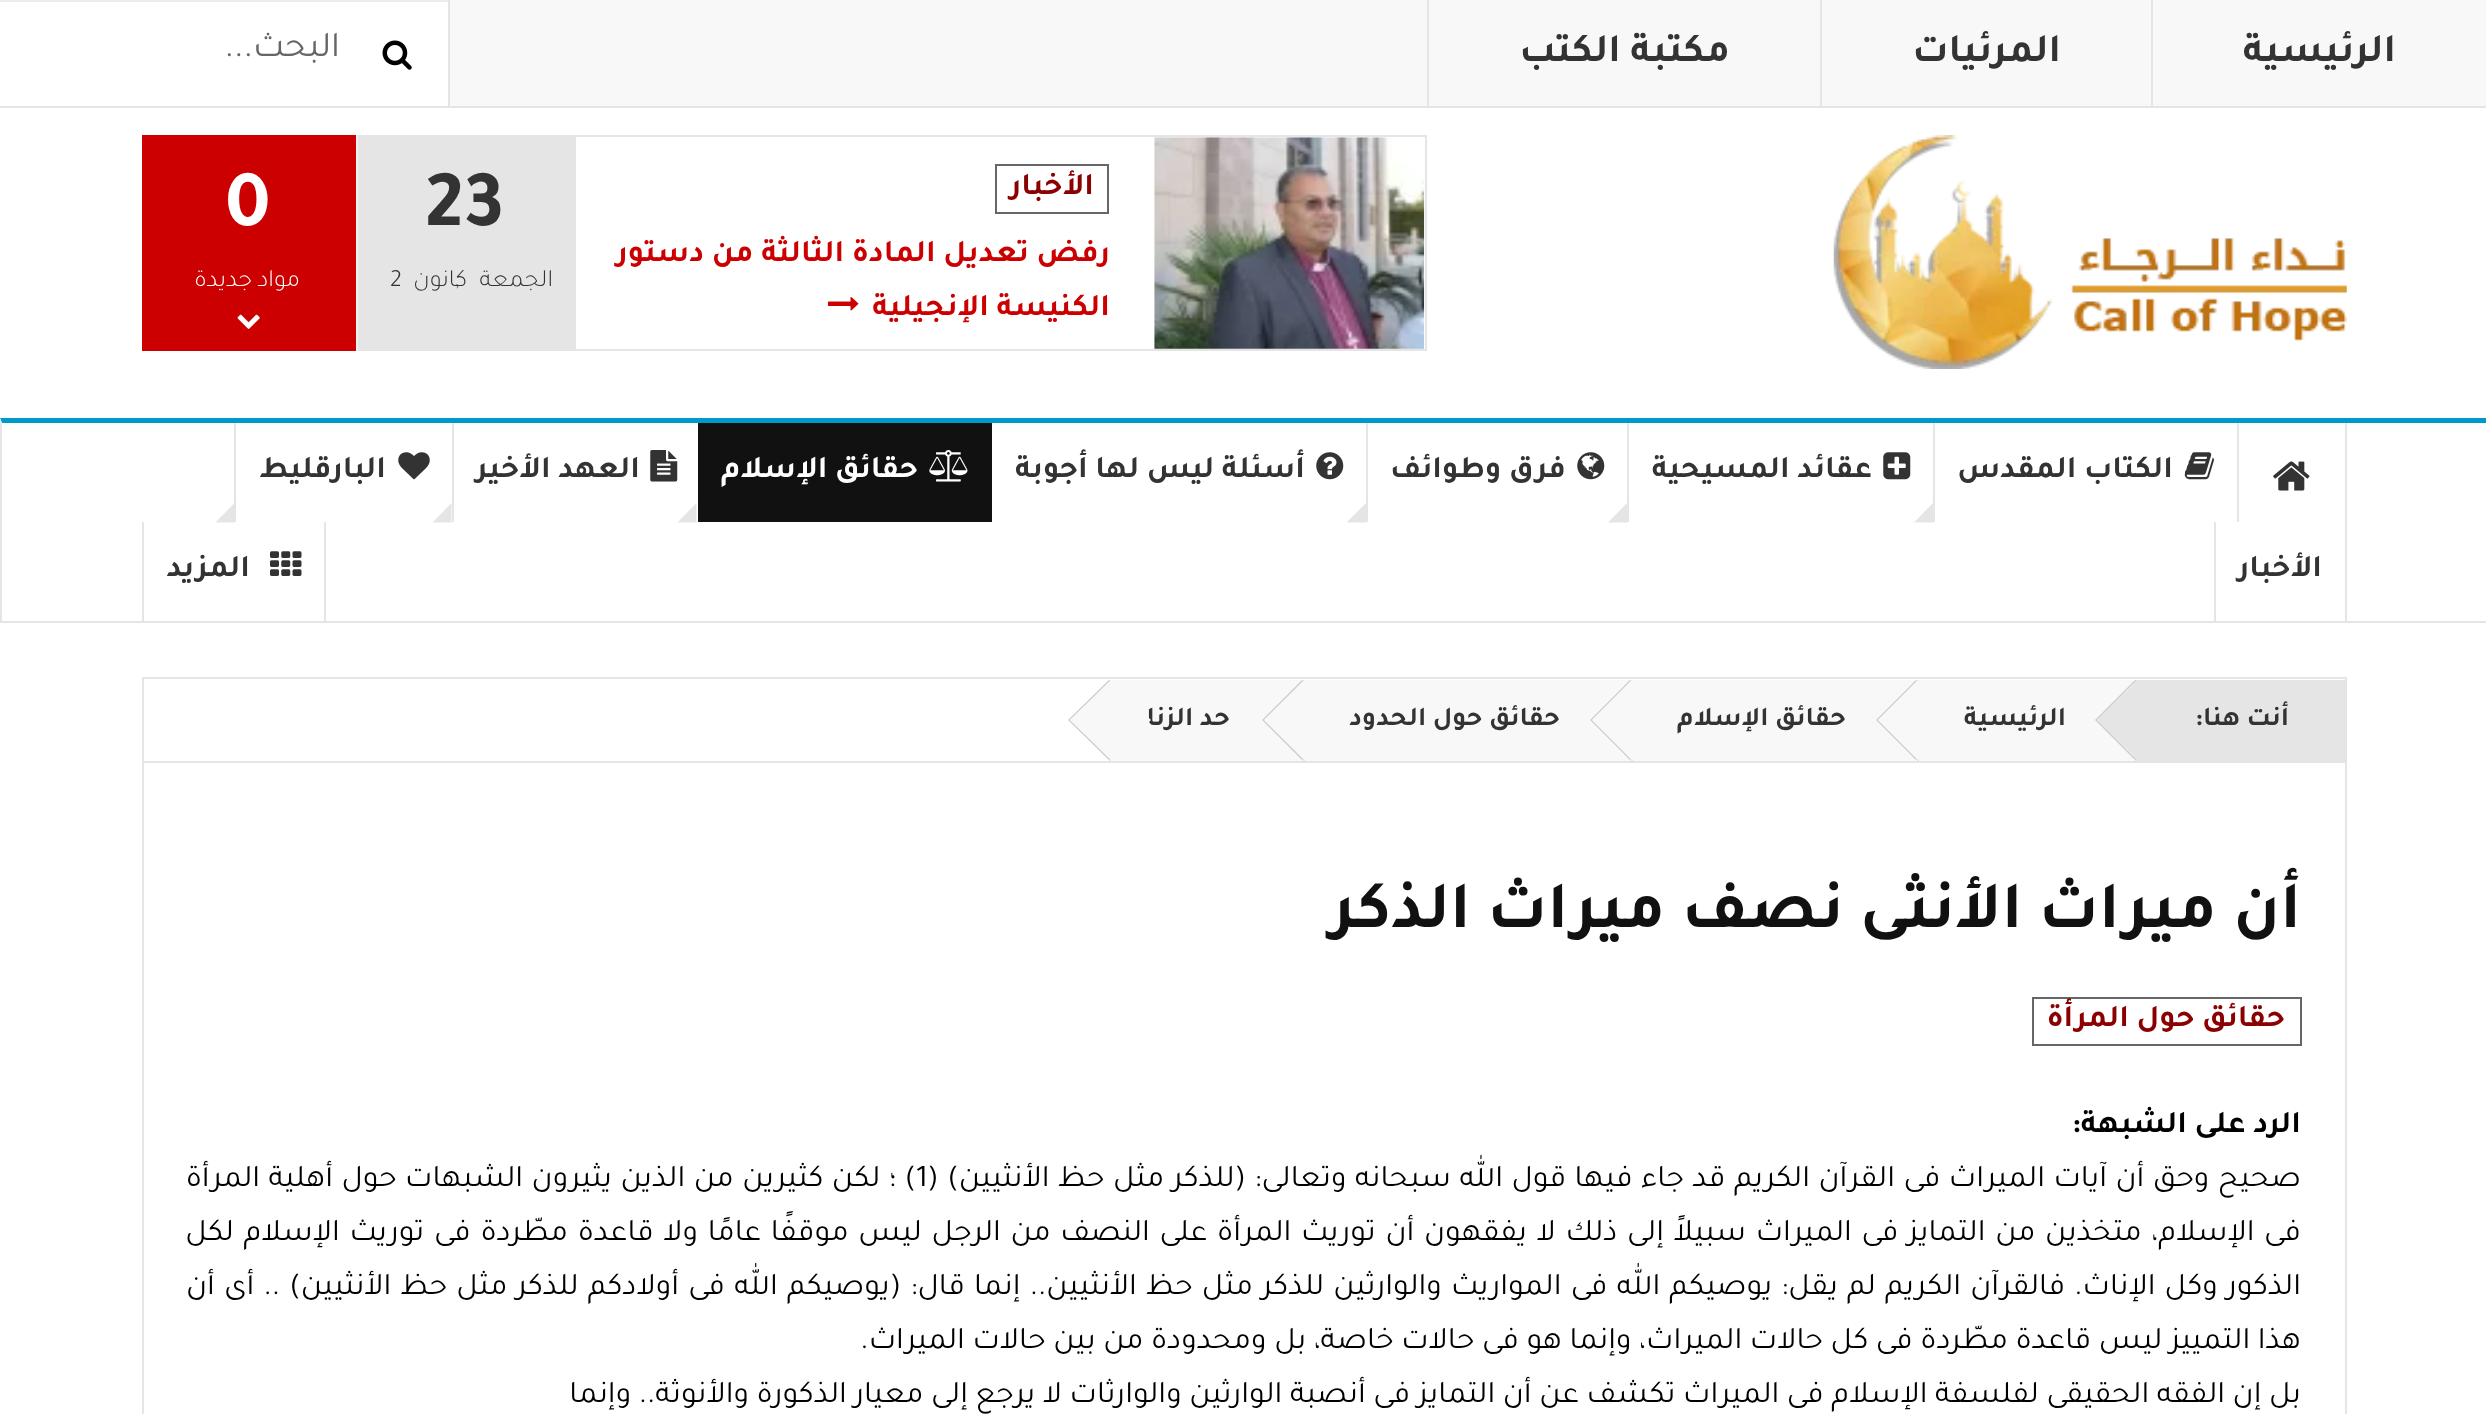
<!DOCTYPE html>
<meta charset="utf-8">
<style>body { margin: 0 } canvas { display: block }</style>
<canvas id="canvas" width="2486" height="1414"></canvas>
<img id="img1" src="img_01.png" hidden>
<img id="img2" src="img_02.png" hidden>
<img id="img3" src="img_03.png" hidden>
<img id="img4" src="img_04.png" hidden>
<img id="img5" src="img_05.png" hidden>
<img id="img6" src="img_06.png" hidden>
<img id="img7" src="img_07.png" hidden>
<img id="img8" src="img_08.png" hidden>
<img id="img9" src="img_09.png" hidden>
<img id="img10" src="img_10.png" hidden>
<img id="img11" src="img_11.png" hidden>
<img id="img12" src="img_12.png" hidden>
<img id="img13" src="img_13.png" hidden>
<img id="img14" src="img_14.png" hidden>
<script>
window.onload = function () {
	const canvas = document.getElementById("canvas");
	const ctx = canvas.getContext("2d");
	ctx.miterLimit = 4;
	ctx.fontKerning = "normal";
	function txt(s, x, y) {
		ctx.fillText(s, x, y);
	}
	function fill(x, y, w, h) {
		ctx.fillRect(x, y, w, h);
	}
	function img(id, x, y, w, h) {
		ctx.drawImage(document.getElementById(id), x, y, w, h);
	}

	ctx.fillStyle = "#FFFFFF";
	fill(0, 0, 2486, 1414);
	ctx.fillStyle = "#F8F8F8";
	fill(450, 0, 2036, 106);
	ctx.fillStyle = "#E5E5E5";
	fill(0, 106, 2486, 2);
	fill(2151, 0, 2, 108);
	fill(1820, 0, 2, 108);
	fill(1427, 0, 2, 108);
	img("img1", 382, 40, 30, 30);
	ctx.fillStyle = "#ECECEC";
	fill(0, 0, 448, 2);
	ctx.fillStyle = "#E5E5E5";
	fill(448, 0, 2, 106);
	img("img2", 1833, 135, 514, 234);
	ctx.strokeStyle = "#E5E5E5";
	ctx.lineWidth = 2;
	ctx.strokeRect(575, 136, 851, 214);
	ctx.save();
	ctx.beginPath();
	ctx.rect(576, 137, 848, 212);
	ctx.clip();
	ctx.beginPath();
	ctx.moveTo(576, 350);
	ctx.lineTo(1424, 350);
	ctx.lineWidth = 2.2;
	ctx.setLineDash([2.25, 2.25]);
	ctx.stroke();
	ctx.restore();
	img("img3", 1154, 137, 271, 212);
	ctx.strokeStyle = "#666666";
	ctx.strokeRect(996, 165, 112, 48);
	img("img4", 828, 297, 31, 14);
	fill(358, 135, 216, 216);
	ctx.fillStyle = "#CC0000";
	fill(142, 135, 214, 216);
	ctx.fillStyle = "#F2F2F2";
	fill(356, 135, 2, 216);
	img("img5", 237, 314, 23, 15);
	ctx.fillStyle = "#0099CC";
	ctx.beginPath();
	ctx.moveTo(0, 418);
	ctx.lineTo(2486, 418);
	ctx.lineTo(2486, 423);
	ctx.lineTo(2, 423);
	ctx.closePath();
	ctx.fill();
	ctx.fillStyle = "#E5E5E5";
	fill(0, 621, 2486, 2);
	ctx.beginPath();
	ctx.moveTo(0, 623);
	ctx.lineTo(0, 418);
	ctx.lineTo(2, 423);
	ctx.lineTo(2, 621);
	ctx.closePath();
	ctx.fill();
	fill(2345, 423, 2, 198);
	fill(2237, 423, 2, 99);
	img("img6", 2273, 461, 37, 30);
	fill(1933, 423, 2, 99);
	img("img7", 2184, 452, 30, 28);
	ctx.beginPath();
	ctx.moveTo(1914, 522.5);
	ctx.lineTo(1933, 503);
	ctx.lineTo(1933, 522.5);
	ctx.closePath();
	ctx.fill();
	fill(1627, 423, 2, 99);
	img("img8", 1883, 452, 28, 28);
	ctx.beginPath();
	ctx.moveTo(1608, 522.5);
	ctx.lineTo(1627, 503);
	ctx.lineTo(1627, 522.5);
	ctx.closePath();
	ctx.fill();
	fill(1366, 423, 2, 99);
	img("img9", 1577, 452, 28, 28);
	ctx.beginPath();
	ctx.moveTo(1346.5, 522.5);
	ctx.lineTo(1366, 503);
	ctx.lineTo(1366, 522.5);
	ctx.closePath();
	ctx.fill();
	img("img10", 1316, 452, 28, 28);
	ctx.fillStyle = "#111111";
	fill(698, 423, 294, 99);
	img("img11", 929, 450, 39, 32);
	ctx.fillStyle = "#E5E5E5";
	ctx.beginPath();
	ctx.moveTo(677.5, 522.5);
	ctx.lineTo(696.5, 503);
	ctx.lineTo(696.5, 522.5);
	ctx.closePath();
	ctx.fill();
	fill(452, 423, 2, 99);
	img("img12", 650, 450, 28, 32);
	ctx.beginPath();
	ctx.moveTo(432.5, 522.5);
	ctx.lineTo(451.5, 503);
	ctx.lineTo(451.5, 522.5);
	ctx.closePath();
	ctx.fill();
	fill(234, 423, 2, 99);
	img("img13", 398, 452, 32, 28);
	ctx.beginPath();
	ctx.moveTo(215.5, 522.5);
	ctx.lineTo(234.5, 503);
	ctx.lineTo(234.5, 522.5);
	ctx.closePath();
	ctx.fill();
	fill(2214, 522, 2, 99);
	fill(324, 522, 2, 99);
	fill(142, 522, 2, 99);
	img("img14", 270, 551, 32, 25);
	fill(142, 677, 2205, 2);
	fill(2345, 677, 2, 84);
	fill(142, 677, 2, 84);
	fill(2135, 680, 210, 81);
	ctx.fillStyle = "#F8F8F8";
	fill(1919, 680, 216, 81);
	ctx.fillStyle = "#CCCCCC";
	ctx.beginPath();
	ctx.moveTo(2135, 680);
	ctx.lineTo(2095, 720);
	ctx.lineTo(2135, 760);
	ctx.lineTo(2136, 759);
	ctx.lineTo(2097, 720);
	ctx.lineTo(2136, 681);
	ctx.closePath();
	ctx.fill();
	ctx.fillStyle = "#E5E5E5";
	ctx.beginPath();
	ctx.moveTo(2138, 680);
	ctx.lineTo(2178, 720);
	ctx.lineTo(2138, 760);
	ctx.lineTo(2097, 720);
	ctx.closePath();
	ctx.fill();
	fill(1917, 680, 2, 81);
	ctx.fillStyle = "#F8F8F8";
	fill(1633, 680, 284, 81);
	ctx.fillStyle = "#CCCCCC";
	ctx.beginPath();
	ctx.moveTo(1916, 680);
	ctx.lineTo(1876, 720);
	ctx.lineTo(1916, 760);
	ctx.lineTo(1917, 759);
	ctx.lineTo(1878, 720);
	ctx.lineTo(1917, 681);
	ctx.closePath();
	ctx.fill();
	ctx.fillStyle = "#F8F8F8";
	ctx.beginPath();
	ctx.moveTo(1918, 680);
	ctx.lineTo(1959, 720);
	ctx.lineTo(1918, 760);
	ctx.lineTo(1878, 720);
	ctx.closePath();
	ctx.fill();
	ctx.fillStyle = "#E5E5E5";
	fill(1631, 680, 2, 81);
	ctx.fillStyle = "#F8F8F8";
	fill(1305, 680, 326, 81);
	ctx.fillStyle = "#CCCCCC";
	ctx.beginPath();
	ctx.moveTo(1630, 680);
	ctx.lineTo(1590, 720);
	ctx.lineTo(1630, 760);
	ctx.lineTo(1631, 759);
	ctx.lineTo(1592, 720);
	ctx.lineTo(1631, 681);
	ctx.closePath();
	ctx.fill();
	ctx.fillStyle = "#F8F8F8";
	ctx.beginPath();
	ctx.moveTo(1632, 680);
	ctx.lineTo(1673, 720);
	ctx.lineTo(1632, 760);
	ctx.lineTo(1592, 720);
	ctx.closePath();
	ctx.fill();
	ctx.fillStyle = "#E5E5E5";
	fill(1303, 680, 2, 81);
	ctx.fillStyle = "#F8F8F8";
	fill(1111, 680, 192, 81);
	ctx.fillStyle = "#CCCCCC";
	ctx.beginPath();
	ctx.moveTo(1302, 680);
	ctx.lineTo(1262, 720);
	ctx.lineTo(1302, 760);
	ctx.lineTo(1303, 759);
	ctx.lineTo(1264, 720);
	ctx.lineTo(1303, 681);
	ctx.closePath();
	ctx.fill();
	ctx.fillStyle = "#F8F8F8";
	ctx.beginPath();
	ctx.moveTo(1305, 680);
	ctx.lineTo(1345, 720);
	ctx.lineTo(1305, 760);
	ctx.lineTo(1264, 720);
	ctx.closePath();
	ctx.fill();
	ctx.fillStyle = "#E5E5E5";
	fill(1109, 680, 2, 81);
	ctx.fillStyle = "#CCCCCC";
	ctx.beginPath();
	ctx.moveTo(1109, 680);
	ctx.lineTo(1068, 720);
	ctx.lineTo(1109, 760);
	ctx.lineTo(1110, 759);
	ctx.lineTo(1070, 720);
	ctx.lineTo(1110, 681);
	ctx.closePath();
	ctx.fill();
	ctx.strokeStyle = "#E5E5E5";
	ctx.strokeRect(143, 762, 2203, 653);
	ctx.strokeStyle = "#666666";
	ctx.strokeRect(2033, 998, 268, 47);
	ctx.direction = "rtl";
	ctx.font = "bold 40.5px Tajawal";
	ctx.fillStyle = "#333333";
	txt("الرئيسية", 2396, 61);
	txt("المرئيات", 2061, 61);
	txt("مكتبة الكتب", 1730, 61);
	ctx.font = "36px Tajawal";
	ctx.fillStyle = "#666666";
	txt("البحث...", 340, 56);
	ctx.font = "bold 31.5px Tajawal";
	ctx.fillStyle = "#8B0000";
	txt("الأخبار", 1094, 194);
	ctx.fillStyle = "#CC0000";
	txt("رفض تعديل المادة الثالثة من دستور", 1110, 261);
	txt("الكنيسة الإنجيلية", 1110, 315);
	ctx.direction = "ltr";
	ctx.font = "bold 81px Tajawal";
	ctx.fillStyle = "#333333";
	txt("23", 425, 225);
	ctx.letterSpacing = "2.25px";
	ctx.direction = "rtl";
	ctx.font = "300 24.75px Tajawal";
	txt("الجمعة", 553, 286);
	ctx.direction = "ltr";
	txt("2", 390, 286);
	ctx.letterSpacing = "0px";
	txt(",", 455, 286);
	ctx.letterSpacing = "2.25px";
	ctx.direction = "rtl";
	txt("كانون", 467, 286);
	ctx.letterSpacing = "0px";
	ctx.direction = "ltr";
	ctx.font = "bold 81px Tajawal";
	ctx.fillStyle = "#FFFFFF";
	txt("0", 225, 225);
	ctx.direction = "rtl";
	ctx.font = "300 24.75px Tajawal";
	txt("مواد جديدة", 300, 286);
	ctx.font = "bold 31.5px Tajawal";
	ctx.fillStyle = "#333333";
	txt("الكتاب المقدس", 2173, 477);
	txt("عقائد المسيحية", 1872, 477);
	txt("فرق وطوائف", 1566, 477);
	txt("أسئلة ليس لها أجوبة", 1305, 477);
	ctx.fillStyle = "#FFFFFF";
	txt("حقائق الإسلام", 918, 477);
	ctx.fillStyle = "#333333";
	txt("العهد الأخير", 640, 477);
	txt("البارقليط", 386, 477);
	txt("الأخبار", 2322, 576);
	txt("المزيد", 250, 576);
	ctx.font = "bold 27px Tajawal";
	txt("أنت هنا:", 2289, 725);
	txt("الرئيسية", 2066, 725);
	txt("حقائق الإسلام", 1846, 725);
	txt("حقائق حول الحدود", 1560, 725);
	txt("حد الزنا", 1230, 725);
	ctx.fillStyle = "#F8F8F8";
	ctx.beginPath();
	ctx.moveTo(1111, 680);
	ctx.lineTo(1151, 720);
	ctx.lineTo(1111, 760);
	ctx.lineTo(1070, 720);
	ctx.closePath();
	ctx.fill();
	ctx.font = "bold 67.5px Tajawal";
	ctx.fillStyle = "#111111";
	txt("أن ميراث الأنثى نصف ميراث الذكر", 2301, 927);
	ctx.font = "bold 31.5px Tajawal";
	ctx.fillStyle = "#8B0000";
	txt("حقائق حول المرأة", 2285, 1026);
	ctx.fillStyle = "#000000";
	txt("الرد على الشبهة:", 2301, 1132);
	ctx.wordSpacing = "0.9px";
	ctx.font = "31.5px Tajawal";
	txt("صحيح وحق أن آيات الميراث فى القرآن الكريم قد جاء فيها قول الله سبحانه وتعالى: (للذكر مثل حظ الأنثيين) (", 2301, 1186);
	ctx.wordSpacing = "0px";
	ctx.direction = "ltr";
	txt("1", 916, 1186);
	ctx.wordSpacing = "0.9px";
	ctx.direction = "rtl";
	txt(") ؛ لكن كثيرين من الذين يثيرون الشبهات حول أهلية المرأة", 916, 1186);
	ctx.wordSpacing = "2.1px";
	txt("فى الإسلام، متخذين من التمايز فى الميراث سبيلاً إلى ذلك لا يفقهون أن توريث المرأة على النصف من الرجل ليس موقفًا عامًا ولا قاعدة مطّردة فى توريث الإسلام لكل", 2301, 1240);
	ctx.wordSpacing = "1.6px";
	txt("الذكور وكل الإناث. فالقرآن الكريم لم يقل: يوصيكم الله فى المواريث والوارثين للذكر مثل حظ الأنثيين.. إنما قال: (يوصيكم الله فى أولادكم للذكر مثل حظ الأنثيين) .. أى أن", 2301, 1294);
	ctx.wordSpacing = "0px";
	txt("هذا التمييز ليس قاعدة مطّردة فى كل حالات الميراث، وإنما هو فى حالات خاصة، بل ومحدودة من بين حالات الميراث.", 2301, 1348);
	txt("بل إن الفقه الحقيقى لفلسفة الإسلام فى الميراث تكشف عن أن التمايز فى أنصبة الوارثين والوارثات لا يرجع إلى معيار الذكورة والأنوثة.. وإنما", 2301, 1402);
};
</script>
